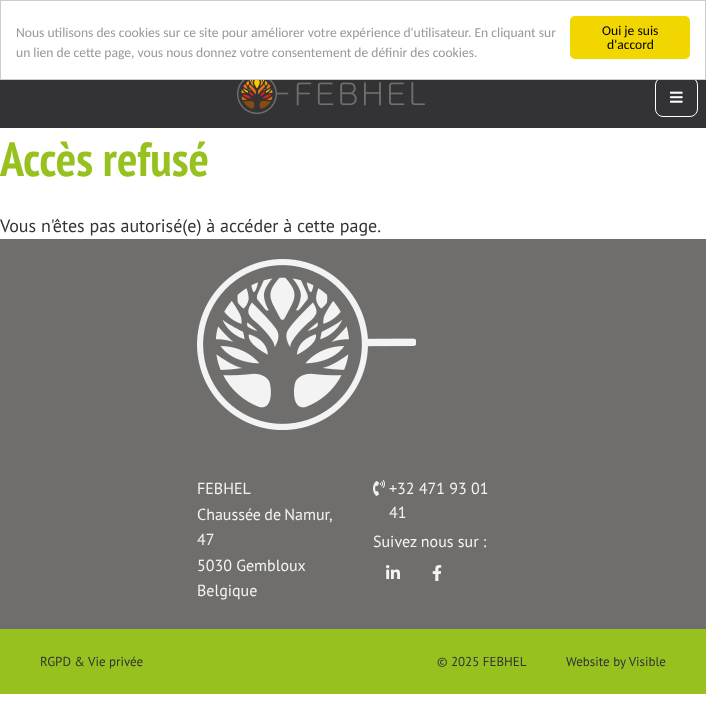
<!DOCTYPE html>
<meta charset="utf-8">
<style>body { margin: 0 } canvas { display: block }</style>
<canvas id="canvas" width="706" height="702"></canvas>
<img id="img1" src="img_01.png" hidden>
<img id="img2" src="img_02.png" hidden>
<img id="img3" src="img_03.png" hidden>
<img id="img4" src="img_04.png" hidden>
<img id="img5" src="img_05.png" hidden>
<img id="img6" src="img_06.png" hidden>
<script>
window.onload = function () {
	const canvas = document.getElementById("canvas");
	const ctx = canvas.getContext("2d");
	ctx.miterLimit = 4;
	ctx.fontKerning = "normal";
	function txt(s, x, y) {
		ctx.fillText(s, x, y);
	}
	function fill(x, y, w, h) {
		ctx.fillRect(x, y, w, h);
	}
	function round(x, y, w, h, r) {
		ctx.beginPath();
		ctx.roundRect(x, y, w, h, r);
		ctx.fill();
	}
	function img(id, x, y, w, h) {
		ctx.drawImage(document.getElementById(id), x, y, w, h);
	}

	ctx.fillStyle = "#FFFFFF";
	fill(0, 0, 706, 702);
	ctx.fillStyle = "#333234";
	fill(0, 80, 706, 48);
	ctx.beginPath();
	ctx.roundRect(655.5, 77.5, 42, 39, 7.5);
	ctx.strokeStyle = "#FFFFFF";
	ctx.stroke();
	ctx.strokeStyle = "#CCCCCC";
	ctx.strokeRect(0.5, 0.5, 705, 79);
	ctx.fillStyle = "#F1D600";
	round(570, 16, 120, 43, 5);
	img("img1", 237, 80, 188, 34);
	img("img2", 670, 91, 13, 12);
	ctx.fillStyle = "#6F6E6D";
	fill(0, 239, 706, 390);
	img("img3", 197, 259, 219, 171);
	img("img4", 373, 480, 12, 16);
	img("img5", 386, 565, 14, 14);
	img("img6", 432, 565, 10, 16);
	ctx.fillStyle = "#97C11F";
	fill(0, 629, 706, 65);
	ctx.font = "13.6px Carlito";
	ctx.fillStyle = "#999999";
	txt("Nous utilisons des cookies sur ce site pour améliorer votre expérience d'utilisateur. En cliquant sur", 16, 37);
	txt("un lien de cette page, vous nous donnez votre consentement de définir des cookies.", 16, 57);
	ctx.fillStyle = "#000000";
	txt("Oui je suis", 602, 35);
	txt("d'accord", 607, 49);
	ctx.font = "bold 48px PT Sans Narrow";
	ctx.fillStyle = "#97C11F";
	txt("Accès refusé", 0, 176);
	ctx.font = "18px PT Sans";
	ctx.fillStyle = "#333234";
	txt("Vous n'êtes pas autorisé(e) à accéder à cette page.", 0, 232);
	ctx.font = "16px PT Sans";
	ctx.fillStyle = "#F3F3F3";
	txt("FEBHEL", 197, 494);
	ctx.wordSpacing = "-1px";
	txt("Chaussée de Namur,", 197, 520);
	ctx.wordSpacing = "0px";
	txt("47", 197, 545);
	txt("5030 Gembloux", 197, 571);
	txt("Belgique", 197, 596);
	txt("+32 471 93 01", 389, 494);
	txt("41", 389, 518);
	txt("Suivez nous sur :", 373, 547);
	ctx.font = "13px PT Sans";
	ctx.fillStyle = "#333234";
	txt("RGPD & Vie privée", 40, 666);
	txt("© 2025 FEBHEL", 437, 666);
	txt("Website by Visible", 566, 666);
};
</script>
